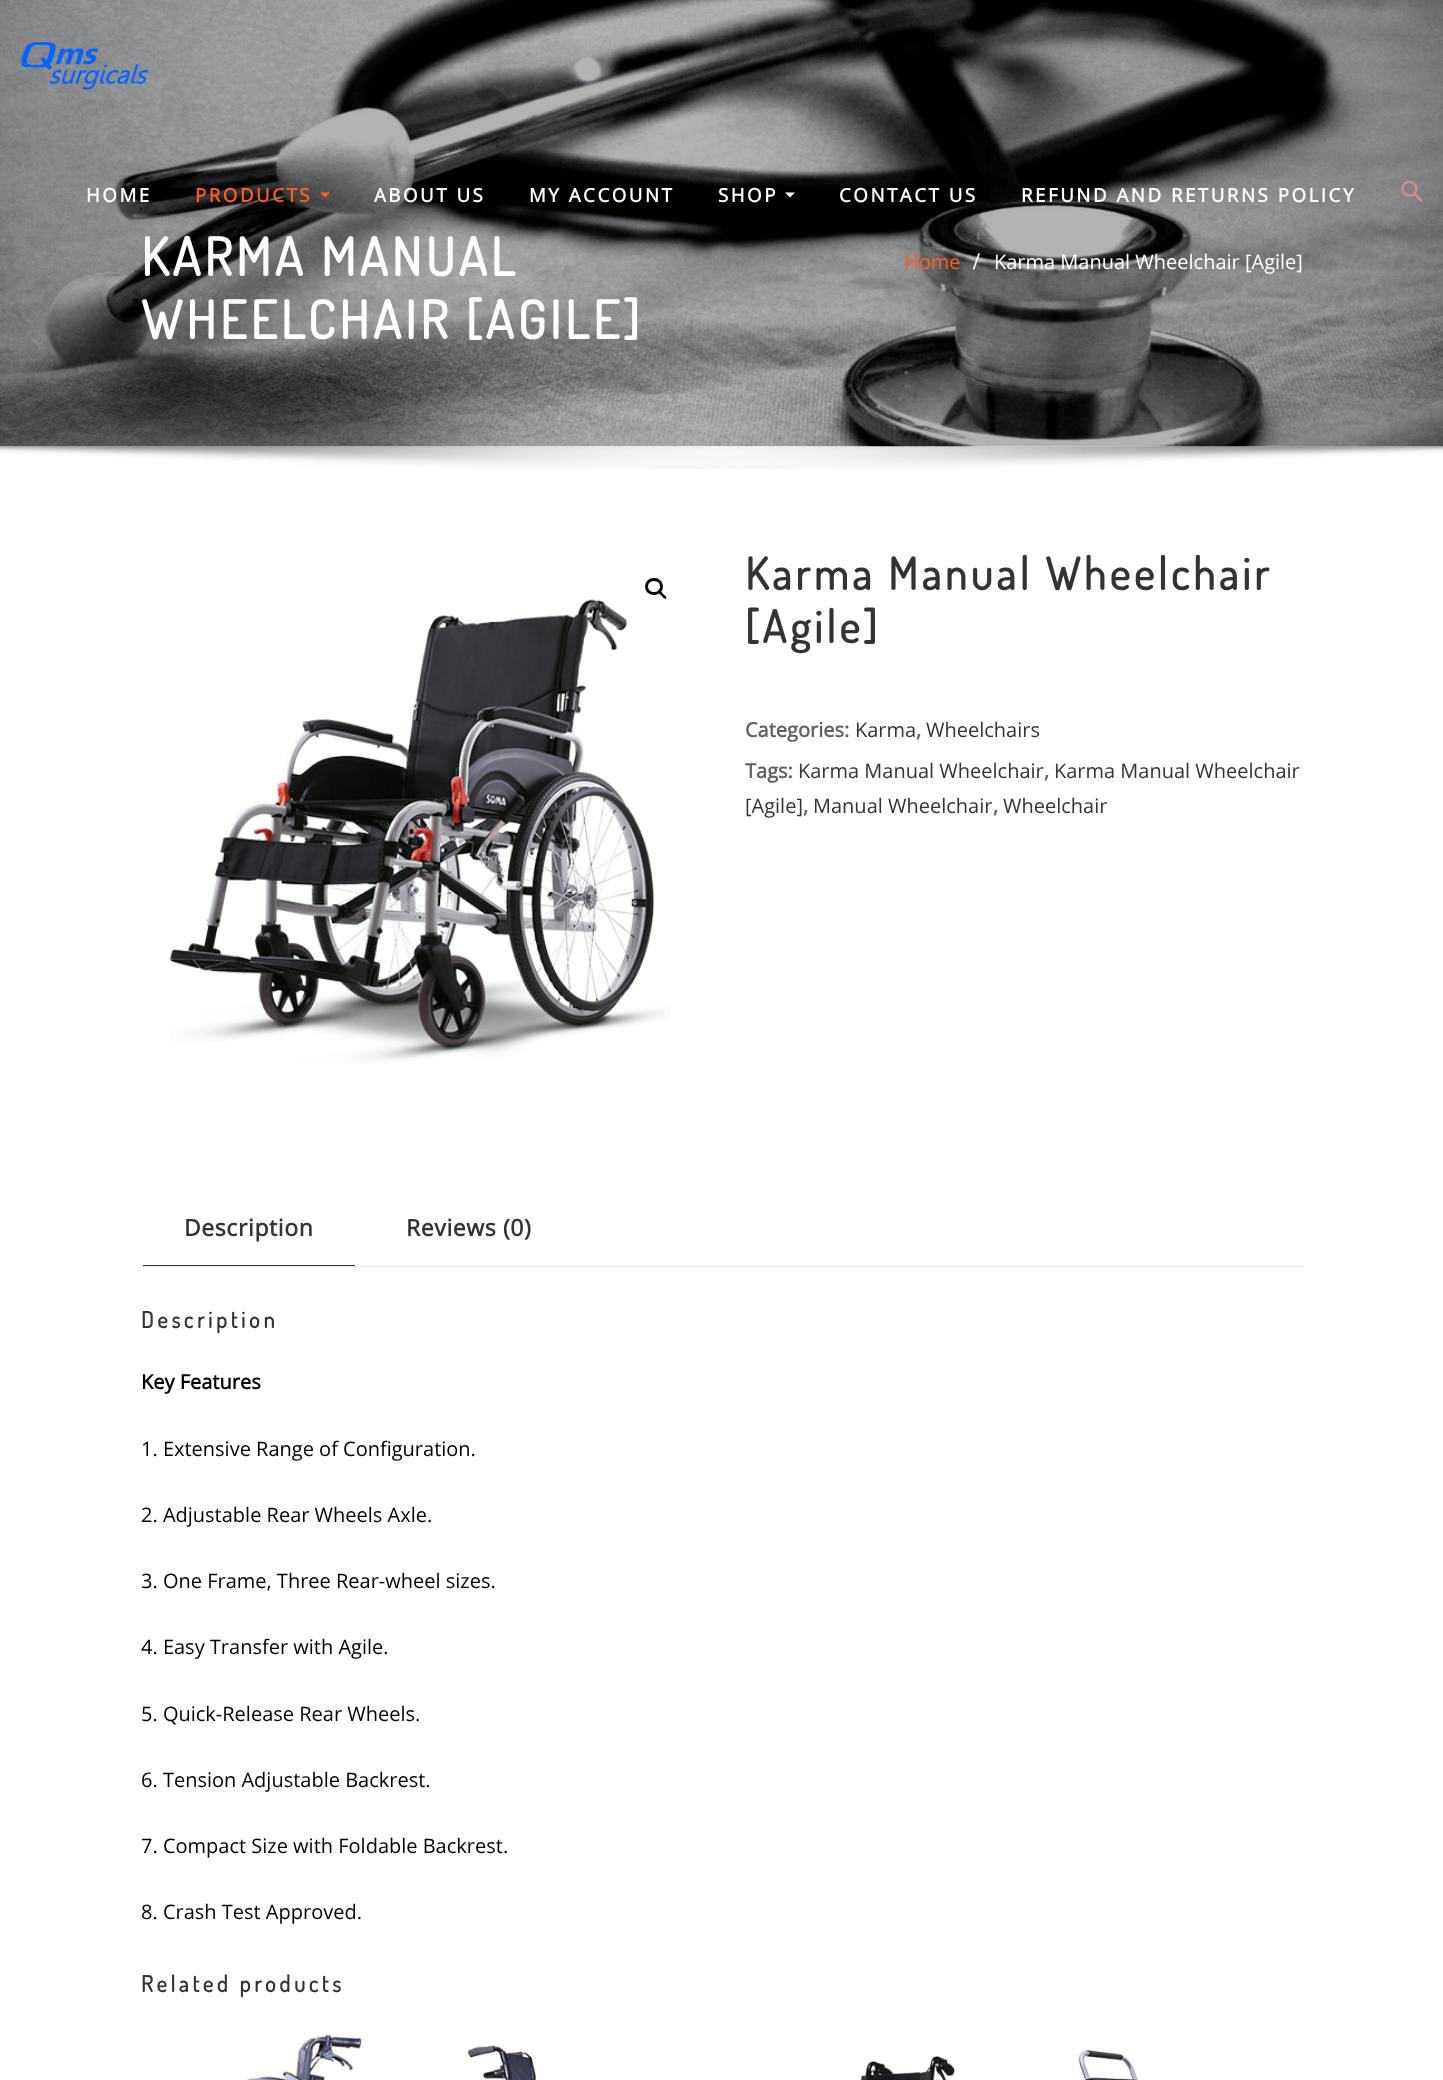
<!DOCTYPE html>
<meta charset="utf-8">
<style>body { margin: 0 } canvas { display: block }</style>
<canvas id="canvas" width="1443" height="2080"></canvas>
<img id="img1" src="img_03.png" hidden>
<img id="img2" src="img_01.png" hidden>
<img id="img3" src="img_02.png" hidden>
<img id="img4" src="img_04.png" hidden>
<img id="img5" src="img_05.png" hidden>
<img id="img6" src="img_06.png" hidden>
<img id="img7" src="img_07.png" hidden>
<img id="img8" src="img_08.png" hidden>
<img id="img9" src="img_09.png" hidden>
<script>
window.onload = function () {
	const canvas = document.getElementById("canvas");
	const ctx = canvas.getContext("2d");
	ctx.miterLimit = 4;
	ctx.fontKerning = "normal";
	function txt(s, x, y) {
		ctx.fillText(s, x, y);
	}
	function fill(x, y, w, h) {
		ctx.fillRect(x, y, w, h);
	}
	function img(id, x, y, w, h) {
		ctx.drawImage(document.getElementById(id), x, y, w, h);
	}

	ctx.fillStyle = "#FFFFFF";
	fill(0, 0, 1443, 2080);
	img("img1", 0, 0, 1443, 447);
	img("img2", 20, 42, 129, 49);
	ctx.fillStyle = "#FF5D20";
	ctx.beginPath();
	ctx.moveTo(320, 192.5);
	ctx.lineTo(330, 192.5);
	ctx.lineTo(325, 197.5);
	ctx.closePath();
	ctx.fill();
	ctx.fillStyle = "#FFFFFF";
	ctx.beginPath();
	ctx.moveTo(785, 192.5);
	ctx.lineTo(795, 192.5);
	ctx.lineTo(790, 197.5);
	ctx.closePath();
	ctx.fill();
	img("img3", 1401, 180, 22, 23);
	img("img4", 0, 446, 1443, 23);
	ctx.beginPath();
	ctx.roundRect(646.5, 579.5, 15, 14, 7);
	ctx.strokeStyle = "#000000";
	ctx.lineWidth = 3;
	ctx.stroke();
	ctx.fillStyle = "#000000";
	ctx.beginPath();
	ctx.moveTo(659, 591);
	ctx.bezierCurveTo(660, 590, 662.5, 593, 663, 594);
	ctx.bezierCurveTo(664, 594.5, 667.5, 597, 666, 598.5);
	ctx.bezierCurveTo(664.5, 599.5, 662, 596.5, 661.5, 595.5);
	ctx.bezierCurveTo(660.5, 595, 657.5, 592.5, 659, 591);
	ctx.closePath();
	ctx.fill();
	img("img5", 170, 599, 501, 465);
	ctx.fillStyle = "#333333";
	fill(143, 1265, 212, 1);
	ctx.fillStyle = "#E9E9E9";
	fill(141, 1266, 1163, 1);
	img("img6", 246, 2034, 118, 46);
	img("img7", 467, 2045, 69, 35);
	img("img8", 860, 2056, 95, 24);
	img("img9", 1078, 2050, 61, 30);
	ctx.letterSpacing = "2.5px";
	ctx.font = "bold 18.75px Open Sans";
	ctx.fillStyle = "#FFFFFF";
	txt("HOME", 86, 202);
	ctx.fillStyle = "#FF5D20";
	txt("PRODUCTS", 195, 202);
	ctx.fillStyle = "#FFFFFF";
	txt("ABOUT US", 374, 202);
	txt("MY ACCOUNT", 529, 202);
	txt("SHOP", 718, 202);
	txt("CONTACT US", 839, 202);
	txt("REFUND AND RETURNS POLICY", 1021, 202);
	ctx.letterSpacing = "3.75px";
	ctx.font = "bold 52.5px Dosis";
	txt("KARMA MANUAL", 141, 276);
	txt("WHEELCHAIR [AGILE]", 141, 339);
	ctx.letterSpacing = "0px";
	ctx.font = "20px Open Sans";
	ctx.fillStyle = "#FF5D20";
	txt("Home", 904, 269);
	ctx.letterSpacing = "2px";
	ctx.font = "bold 24px Liberation Serif";
	ctx.fillStyle = "#FFFFFF";
	txt("/", 973, 269);
	ctx.letterSpacing = "0px";
	ctx.font = "20px Open Sans";
	txt("Karma Manual Wheelchair [Agile]", 994, 269);
	ctx.letterSpacing = "3.75px";
	ctx.font = "bold 44.5px Dosis";
	ctx.fillStyle = "#333333";
	txt("Karma Manual Wheelchair", 745, 590);
	txt("[Agile]", 745, 643);
	ctx.letterSpacing = "0px";
	ctx.font = "bold 20px Open Sans";
	ctx.fillStyle = "#606060";
	txt("Categories:", 745, 737);
	ctx.font = "20px Open Sans";
	ctx.fillStyle = "#333333";
	txt("Karma", 855, 737);
	ctx.font = "bold 20px Open Sans";
	ctx.fillStyle = "#606060";
	txt(",", 916, 737);
	ctx.font = "20px Open Sans";
	ctx.fillStyle = "#333333";
	txt("Wheelchairs", 926, 737);
	ctx.font = "bold 20px Open Sans";
	ctx.fillStyle = "#606060";
	txt("Tags:", 745, 778);
	ctx.font = "20px Open Sans";
	ctx.fillStyle = "#333333";
	txt("Karma Manual Wheelchair", 798, 778);
	ctx.font = "bold 20px Open Sans";
	ctx.fillStyle = "#606060";
	txt(",", 1044, 778);
	ctx.font = "20px Open Sans";
	ctx.fillStyle = "#333333";
	txt("Karma Manual Wheelchair", 1054, 778);
	txt("[Agile]", 745, 813);
	ctx.font = "bold 20px Open Sans";
	ctx.fillStyle = "#606060";
	txt(",", 803, 813);
	ctx.font = "20px Open Sans";
	ctx.fillStyle = "#333333";
	txt("Manual Wheelchair", 813, 813);
	ctx.font = "bold 20px Open Sans";
	ctx.fillStyle = "#606060";
	txt(",", 993, 813);
	ctx.font = "20px Open Sans";
	ctx.fillStyle = "#333333";
	txt("Wheelchair", 1003, 813);
	ctx.letterSpacing = "0.6px";
	ctx.font = "bold 23px Open Sans";
	txt("Description", 184, 1236);
	txt("Reviews (0)", 406, 1236);
	ctx.letterSpacing = "3.75px";
	ctx.font = "bold 22.5px Dosis";
	txt("Description", 141, 1328);
	ctx.letterSpacing = "0px";
	ctx.font = "bold 20px Open Sans";
	ctx.fillStyle = "#000000";
	txt("Key Features", 141, 1389);
	ctx.font = "20px Open Sans";
	txt("1. Extensive Range of Configuration.", 141, 1456);
	txt("2. Adjustable Rear Wheels Axle.", 141, 1522);
	txt("3. One Frame, Three Rear-wheel sizes.", 141, 1588);
	txt("4. Easy Transfer with Agile.", 141, 1654);
	txt("5. Quick-Release Rear Wheels.", 141, 1721);
	txt("6. Tension Adjustable Backrest.", 141, 1787);
	txt("7. Compact Size with Foldable Backrest.", 141, 1853);
	txt("8. Crash Test Approved.", 141, 1919);
	ctx.letterSpacing = "3.75px";
	ctx.font = "bold 22.5px Dosis";
	ctx.fillStyle = "#333333";
	txt("Related products", 141, 1992);
};
</script>
